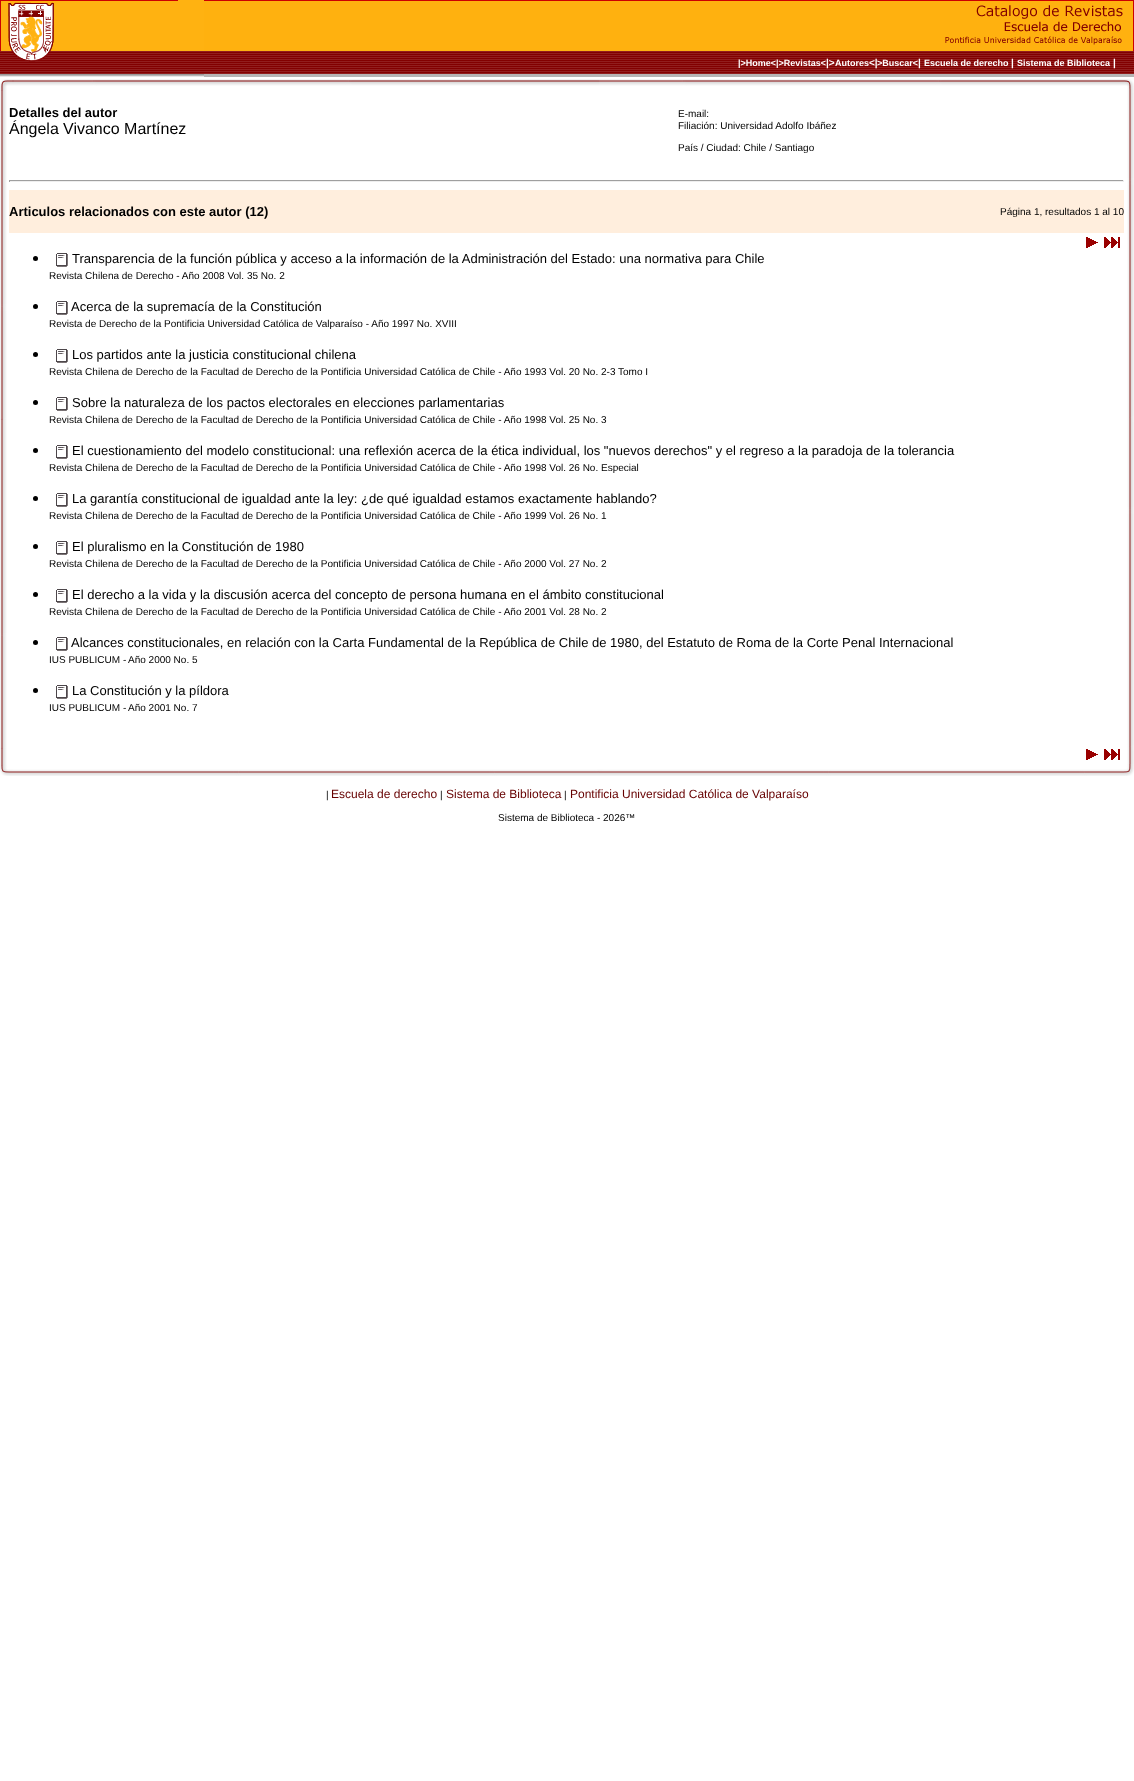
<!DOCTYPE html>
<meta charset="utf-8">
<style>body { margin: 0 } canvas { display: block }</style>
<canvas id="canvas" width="1134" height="1781"></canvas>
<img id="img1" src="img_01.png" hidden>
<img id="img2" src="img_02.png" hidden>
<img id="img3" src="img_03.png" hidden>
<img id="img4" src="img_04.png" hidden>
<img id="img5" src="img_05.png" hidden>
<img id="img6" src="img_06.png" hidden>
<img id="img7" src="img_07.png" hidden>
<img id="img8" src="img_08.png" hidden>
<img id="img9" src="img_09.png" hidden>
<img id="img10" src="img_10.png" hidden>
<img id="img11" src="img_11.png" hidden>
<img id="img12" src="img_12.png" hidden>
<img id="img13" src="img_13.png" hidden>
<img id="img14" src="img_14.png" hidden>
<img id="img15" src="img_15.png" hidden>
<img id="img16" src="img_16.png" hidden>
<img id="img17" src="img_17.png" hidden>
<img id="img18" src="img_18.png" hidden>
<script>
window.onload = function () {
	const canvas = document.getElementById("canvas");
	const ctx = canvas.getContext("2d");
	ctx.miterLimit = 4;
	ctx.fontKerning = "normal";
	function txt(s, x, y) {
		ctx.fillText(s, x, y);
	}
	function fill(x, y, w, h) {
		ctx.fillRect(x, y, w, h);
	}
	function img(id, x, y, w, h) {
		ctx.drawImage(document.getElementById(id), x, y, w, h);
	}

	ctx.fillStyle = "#FFFFFF";
	fill(0, 0, 1134, 1781);
	ctx.fillStyle = "#FFB211";
	fill(178, 0, 26, 51);
	img("img1", 0, 0, 178, 51);
	ctx.fillStyle = "#CC0000";
	fill(204, 0, 930, 1);
	img("img2", 945, 1, 189, 50);
	ctx.fillStyle = "#FFB10F";
	fill(204, 1, 741, 50);
	img("img3", 0, 51, 204, 23);
	img("img4", 12, 51, 39, 11);
	img("img5", 204, 51, 930, 23);
	img("img6", 0, 74, 204, 5);
	ctx.fillStyle = "#B5B5B5";
	fill(204, 74, 930, 3);
	img("img7", 0, 79, 9, 10);
	img("img8", 9, 79, 1115, 7);
	img("img9", 12, 80, 2, 2);
	img("img10", 1124, 79, 10, 10);
	img("img11", 0, 89, 7, 675);
	ctx.fillStyle = "#9F9F9F";
	fill(9, 180, 1115, 1);
	ctx.fillStyle = "#EEEEEE";
	fill(1123, 180, 1, 2);
	fill(9, 181, 1115, 1);
	ctx.fillStyle = "#9F9F9F";
	fill(9, 180, 1, 2);
	ctx.fillStyle = "#FFEEDD";
	fill(9, 190, 1115, 43);
	img("img12", 1086, 237, 12, 11);
	img("img13", 1104, 237, 16, 11);
	ctx.fillStyle = "#000000";
	ctx.beginPath();
	ctx.arc(35.5, 258.5, 2.5, 0, Math.PI * 2);
	ctx.fill();
	img("img14", 56, 253, 12, 14);
	ctx.beginPath();
	ctx.arc(35.5, 306.5, 2.5, 0, Math.PI * 2);
	ctx.fill();
	img("img14", 56, 301, 12, 14);
	ctx.beginPath();
	ctx.arc(35.5, 354.5, 2.5, 0, Math.PI * 2);
	ctx.fill();
	img("img14", 56, 349, 12, 14);
	ctx.beginPath();
	ctx.arc(35.5, 402.5, 2.5, 0, Math.PI * 2);
	ctx.fill();
	img("img14", 56, 397, 12, 14);
	ctx.beginPath();
	ctx.arc(35.5, 450.5, 2.5, 0, Math.PI * 2);
	ctx.fill();
	img("img14", 56, 445, 12, 14);
	ctx.beginPath();
	ctx.arc(35.5, 498.5, 2.5, 0, Math.PI * 2);
	ctx.fill();
	img("img14", 56, 493, 12, 14);
	ctx.beginPath();
	ctx.arc(35.5, 546.5, 2.5, 0, Math.PI * 2);
	ctx.fill();
	img("img14", 56, 541, 12, 14);
	ctx.beginPath();
	ctx.arc(35.5, 594.5, 2.5, 0, Math.PI * 2);
	ctx.fill();
	img("img14", 56, 589, 12, 14);
	ctx.beginPath();
	ctx.arc(35.5, 642.5, 2.5, 0, Math.PI * 2);
	ctx.fill();
	img("img14", 56, 637, 12, 14);
	ctx.beginPath();
	ctx.arc(35.5, 690.5, 2.5, 0, Math.PI * 2);
	ctx.fill();
	img("img14", 56, 685, 12, 14);
	img("img12", 1086, 749, 12, 11);
	img("img13", 1104, 749, 16, 11);
	img("img15", 1127, 89, 7, 675);
	img("img16", 0, 764, 9, 12);
	img("img17", 9, 769, 1115, 7);
	img("img18", 1124, 764, 10, 12);
	ctx.font = "bold 9px Liberation Sans";
	ctx.fillStyle = "#FFFFFF";
	txt("|>Home<|>Revistas<", 738, 66);
	ctx.font = "bold 10px Liberation Sans";
	txt("|>", 826, 66);
	ctx.font = "bold 9px Liberation Sans";
	txt("Autores", 835, 66);
	ctx.font = "bold 10px Liberation Sans";
	txt("<|", 869, 66);
	ctx.font = "bold 9px Liberation Sans";
	txt(">Buscar<", 877, 66);
	ctx.font = "bold 10px Liberation Sans";
	txt("|", 918, 66);
	ctx.font = "bold 9px Liberation Sans";
	txt("Escuela de derecho", 924, 66);
	ctx.font = "bold 10px Liberation Sans";
	txt("|", 1011, 66);
	ctx.font = "bold 9px Liberation Sans";
	txt("Sistema de Biblioteca", 1017, 66);
	ctx.font = "bold 10px Liberation Sans";
	txt("|", 1113, 66);
	ctx.font = "bold 13px Liberation Sans";
	ctx.fillStyle = "#000000";
	txt("Detalles del autor", 9, 117);
	ctx.font = "16px Liberation Sans";
	txt("Ángela", 9, 134);
	txt("Vivanco Martínez", 63, 134);
	ctx.font = "10px Liberation Sans";
	txt("E-mail:", 678, 117);
	txt("Filiación: Universidad Adolfo Ibáñez", 678, 129);
	txt("País / Ciudad: Chile / Santiago", 678, 151);
	ctx.font = "bold 13px Liberation Sans";
	txt("Articulos relacionados con este autor (12)", 9, 216);
	ctx.font = "10px Liberation Sans";
	txt("Página 1, resultados 1 al 10", 1000, 215);
	ctx.font = "13px Liberation Sans";
	txt("Transparencia de la función pública y acceso a la información de la Administración del Estado: una normativa para Chile", 72, 263);
	ctx.font = "10px Liberation Sans";
	txt("Revista Chilena de Derecho - Año 2008 Vol. 35 No. 2", 49, 279);
	ctx.font = "13px Liberation Sans";
	txt("Acerca de la supremacía de la Constitución", 71, 311);
	ctx.font = "10px Liberation Sans";
	txt("Revista de Derecho de la Pontificia Universidad Católica de Valparaíso - Año 1997 No. XVIII", 49, 327);
	ctx.font = "13px Liberation Sans";
	txt("Los partidos ante la justicia constitucional chilena", 72, 359);
	ctx.font = "10px Liberation Sans";
	txt("Revista Chilena de Derecho de la Facultad de Derecho de la Pontificia Universidad Católica de Chile - Año 1993 Vol. 20 No. 2-3 Tomo I", 49, 375);
	ctx.font = "13px Liberation Sans";
	txt("Sobre la naturaleza de los pactos electorales en elecciones parlamentarias", 72, 407);
	ctx.font = "10px Liberation Sans";
	txt("Revista Chilena de Derecho de la Facultad de Derecho de la Pontificia Universidad Católica de Chile - Año 1998 Vol. 25 No. 3", 49, 423);
	ctx.font = "13px Liberation Sans";
	txt("El cuestionamiento del modelo constitucional: una reflexión acerca de la ética individual, los \"nuevos derechos\" y el regreso a la paradoja de la tolerancia", 72, 455);
	ctx.font = "10px Liberation Sans";
	txt("Revista Chilena de Derecho de la Facultad de Derecho de la Pontificia Universidad Católica de Chile - Año 1998 Vol. 26 No. Especial", 49, 471);
	ctx.font = "13px Liberation Sans";
	txt("La garantía constitucional de igualdad ante la ley: ¿de qué igualdad estamos exactamente hablando?", 72, 503);
	ctx.font = "10px Liberation Sans";
	txt("Revista Chilena de Derecho de la Facultad de Derecho de la Pontificia Universidad Católica de Chile - Año 1999 Vol. 26 No. 1", 49, 519);
	ctx.font = "13px Liberation Sans";
	txt("El pluralismo en la Constitución de 1980", 72, 551);
	ctx.font = "10px Liberation Sans";
	txt("Revista Chilena de Derecho de la Facultad de Derecho de la Pontificia Universidad Católica de Chile - Año 2000 Vol. 27 No. 2", 49, 567);
	ctx.font = "13px Liberation Sans";
	txt("El derecho a la vida y la discusión acerca del concepto de persona humana en el ámbito constitucional", 72, 599);
	ctx.font = "10px Liberation Sans";
	txt("Revista Chilena de Derecho de la Facultad de Derecho de la Pontificia Universidad Católica de Chile - Año 2001 Vol. 28 No. 2", 49, 615);
	ctx.font = "13px Liberation Sans";
	txt("Alcances constitucionales, en relación con la Carta Fundamental de la República de Chile de 1980, del Estatuto de Roma de la Corte Penal Internacional", 71, 647);
	ctx.font = "10px Liberation Sans";
	txt("IUS PUBLICUM -", 49, 663);
	txt("Año 2000 No. 5", 128, 663);
	ctx.font = "13px Liberation Sans";
	txt("La Constitución y la píldora", 72, 695);
	ctx.font = "10px Liberation Sans";
	txt("IUS PUBLICUM -", 49, 711);
	txt("Año 2001 No. 7", 128, 711);
	txt("|", 326, 798);
	ctx.font = "12px Liberation Sans";
	ctx.fillStyle = "#660000";
	txt("Escuela de derecho", 331, 798);
	ctx.font = "10px Liberation Sans";
	ctx.fillStyle = "#000000";
	txt("|", 440, 798);
	ctx.font = "12px Liberation Sans";
	ctx.fillStyle = "#660000";
	txt("Sistema de Biblioteca", 446, 798);
	ctx.font = "10px Liberation Sans";
	ctx.fillStyle = "#000000";
	txt("|", 564, 798);
	ctx.font = "12px Liberation Sans";
	ctx.fillStyle = "#660000";
	txt("Pontificia Universidad Católica de Valparaíso", 570, 798);
	ctx.font = "10px Liberation Sans";
	ctx.fillStyle = "#000000";
	txt("Sistema de Biblioteca - 2026™", 498, 821);
};
</script>
